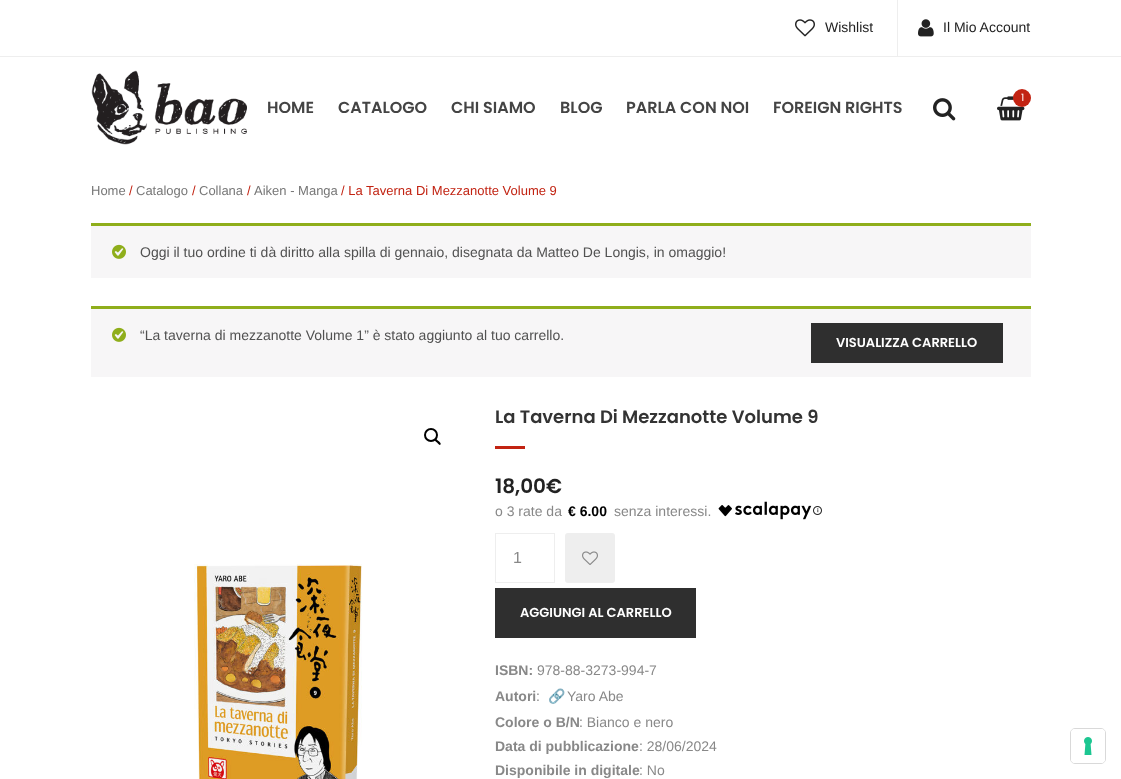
<!DOCTYPE html>
<meta charset="utf-8">
<style>body { margin: 0 } canvas { display: block }</style>
<canvas id="canvas" width="1121" height="779"></canvas>
<img id="img1" src="img_01.png" hidden>
<img id="img2" src="img_02.png" hidden>
<img id="img3" src="img_03.png" hidden>
<img id="img4" src="img_04.png" hidden>
<img id="img5" src="img_05.png" hidden>
<img id="img6" src="img_06.png" hidden>
<img id="img7" src="img_07.png" hidden>
<img id="img8" src="img_08.png" hidden>
<img id="img9" src="img_09.png" hidden>
<img id="img10" src="img_10.png" hidden>
<img id="img11" src="img_11.png" hidden>
<script>
window.onload = function () {
	const canvas = document.getElementById("canvas");
	const ctx = canvas.getContext("2d");
	ctx.miterLimit = 4;
	ctx.fontKerning = "normal";
	function txt(s, x, y) {
		ctx.fillText(s, x, y);
	}
	function fill(x, y, w, h) {
		ctx.fillRect(x, y, w, h);
	}
	function round(x, y, w, h, r) {
		ctx.beginPath();
		ctx.roundRect(x, y, w, h, r);
		ctx.fill();
	}
	function img(id, x, y, w, h) {
		ctx.drawImage(document.getElementById(id), x, y, w, h);
	}

	ctx.fillStyle = "#FFFFFF";
	fill(0, 0, 1121, 779);
	ctx.fillStyle = "#EEEEEE";
	fill(0, 56, 1121, 1);
	img("img1", 795, 19, 20, 18);
	fill(897, 0, 1, 56);
	img("img2", 918, 19, 16, 18);
	img("img3", 91, 70, 156, 75);
	img("img4", 997, 96, 28, 25);
	ctx.fillStyle = "#C22312";
	ctx.beginPath();
	ctx.arc(1022, 98, 9, 0, Math.PI * 2);
	ctx.fill();
	img("img5", 933, 98, 23, 23);
	ctx.fillStyle = "#F7F6F7";
	fill(91, 226, 940, 52);
	ctx.fillStyle = "#8FAE1B";
	fill(91, 223, 940, 3);
	img("img6", 112, 244, 14, 15);
	ctx.fillStyle = "#F7F6F7";
	fill(91, 309, 940, 68);
	ctx.fillStyle = "#8FAE1B";
	fill(91, 306, 940, 3);
	img("img6", 112, 327, 14, 15);
	ctx.fillStyle = "#2F2F2F";
	fill(811, 323, 192, 40);
	ctx.beginPath();
	ctx.arc(431, 435, 6, 0, Math.PI * 2);
	ctx.strokeStyle = "#000000";
	ctx.lineWidth = 2;
	ctx.stroke();
	ctx.fillStyle = "#000000";
	ctx.beginPath();
	ctx.moveTo(435, 439);
	ctx.bezierCurveTo(436, 438, 437.5, 440.5, 438.5, 441);
	ctx.bezierCurveTo(439, 441.5, 441.5, 443.5, 440.5, 444.5);
	ctx.bezierCurveTo(439.5, 446, 437.5, 443, 437, 442.5);
	ctx.bezierCurveTo(436.5, 442, 433.5, 440, 435, 439);
	ctx.closePath();
	ctx.fill();
	img("img7", 194, 564, 168, 215);
	ctx.fillStyle = "#C22312";
	fill(495, 446, 30, 3);
	img("img8", 718, 501, 94, 19);
	img("img9", 813, 506, 9, 9);
	ctx.strokeStyle = "#EEEEEE";
	ctx.lineWidth = 1;
	ctx.strokeRect(495.5, 533.5, 59, 49);
	ctx.fillStyle = "#EEEEEE";
	round(565, 533, 50, 50, 3);
	img("img10", 582, 551, 16, 14);
	ctx.fillStyle = "#2F2F2F";
	fill(495, 588, 201, 50);
	ctx.beginPath();
	ctx.roundRect(1070.5, 728.5, 35, 35, 4.5);
	ctx.strokeStyle = "#D9D9D9";
	ctx.stroke();
	ctx.fillStyle = "#FFFFFF";
	round(1071, 729, 34, 34, 4);
	img("img11", 1084, 737, 8, 18);
	ctx.font = "14px Liberation Sans";
	ctx.fillStyle = "#222222";
	txt("Wishlist", 825, 32);
	txt("Il Mio Account", 943, 32);
	ctx.font = "10px Poppins";
	ctx.fillStyle = "#FFFFFF";
	txt("1", 1021, 101);
	ctx.font = "600 16px Poppins";
	ctx.fillStyle = "#444444";
	txt("HOME", 267, 113);
	txt("CATALOGO", 338, 113);
	txt("CHI SIAMO", 451, 113);
	txt("BLOG", 560, 113);
	txt("PARLA CON NOI", 626, 113);
	txt("FOREIGN RIGHTS", 773, 113);
	ctx.font = "13px Liberation Sans";
	ctx.fillStyle = "#777777";
	txt("Home", 91, 195);
	ctx.fillStyle = "#C22312";
	txt("/", 129, 195);
	ctx.fillStyle = "#777777";
	txt("Catalogo", 136, 195);
	ctx.fillStyle = "#C22312";
	txt("/", 192, 195);
	ctx.fillStyle = "#777777";
	txt("Collana", 199, 195);
	ctx.fillStyle = "#C22312";
	txt("/", 247, 195);
	ctx.fillStyle = "#777777";
	txt("Aiken - Manga", 254, 195);
	ctx.fillStyle = "#C22312";
	txt("/ La Taverna Di Mezzanotte Volume 9", 341, 195);
	ctx.font = "14px Liberation Sans";
	ctx.fillStyle = "#515151";
	txt("Oggi il tuo ordine ti dà diritto alla spilla di gennaio, disegnata da Matteo De Longis, in omaggio!", 140, 257);
	txt("“La taverna di mezzanotte Volume 1” è stato aggiunto al tuo carrello.", 140, 340);
	ctx.font = "600 13px Poppins";
	ctx.fillStyle = "#FFFFFF";
	txt("VISUALIZZA CARRELLO", 836, 347);
	ctx.font = "600 18px Poppins";
	ctx.fillStyle = "#333333";
	txt("La Taverna Di Mezzanotte Volume 9", 495, 423);
	ctx.font = "600 20px Poppins";
	ctx.fillStyle = "#222222";
	txt("18,00€", 495, 493);
	ctx.font = "14px Liberation Sans";
	ctx.fillStyle = "#888888";
	txt("o 3 rate da", 495, 516);
	ctx.font = "bold 14px Liberation Sans";
	ctx.fillStyle = "#000000";
	txt("€ 6.00", 568, 516);
	ctx.font = "14px Liberation Sans";
	ctx.fillStyle = "#888888";
	txt("senza interessi.", 614, 516);
	ctx.font = "16px Liberation Sans";
	txt("1", 513, 563);
	ctx.font = "600 13px Poppins";
	ctx.fillStyle = "#FFFFFF";
	txt("AGGIUNGI AL CARRELLO", 520, 617);
	ctx.font = "bold 14px Liberation Sans";
	ctx.fillStyle = "#888888";
	txt("ISBN:", 495, 675);
	ctx.font = "14px Liberation Sans";
	txt("978-88-3273-994-7", 537, 675);
	ctx.font = "bold 14px Liberation Sans";
	txt("Autori", 495, 701);
	ctx.font = "14px Liberation Sans";
	txt(":", 536, 701);
	ctx.font = "14px Noto Color Emoji";
	txt("🔗", 548, 701);
	ctx.font = "14px Liberation Sans";
	txt("Yaro Abe", 567, 701);
	ctx.font = "bold 14px Liberation Sans";
	txt("Colore o B/N", 495, 727);
	ctx.font = "14px Liberation Sans";
	txt(": Bianco e nero", 579, 727);
	ctx.font = "bold 14px Liberation Sans";
	txt("Data di pubblicazione", 495, 751);
	ctx.font = "14px Liberation Sans";
	txt(": 28/06/2024", 639, 751);
	ctx.font = "bold 14px Liberation Sans";
	txt("Disponibile in digitale", 495, 775);
	ctx.font = "14px Liberation Sans";
	txt(": No", 639, 775);
};
</script>
